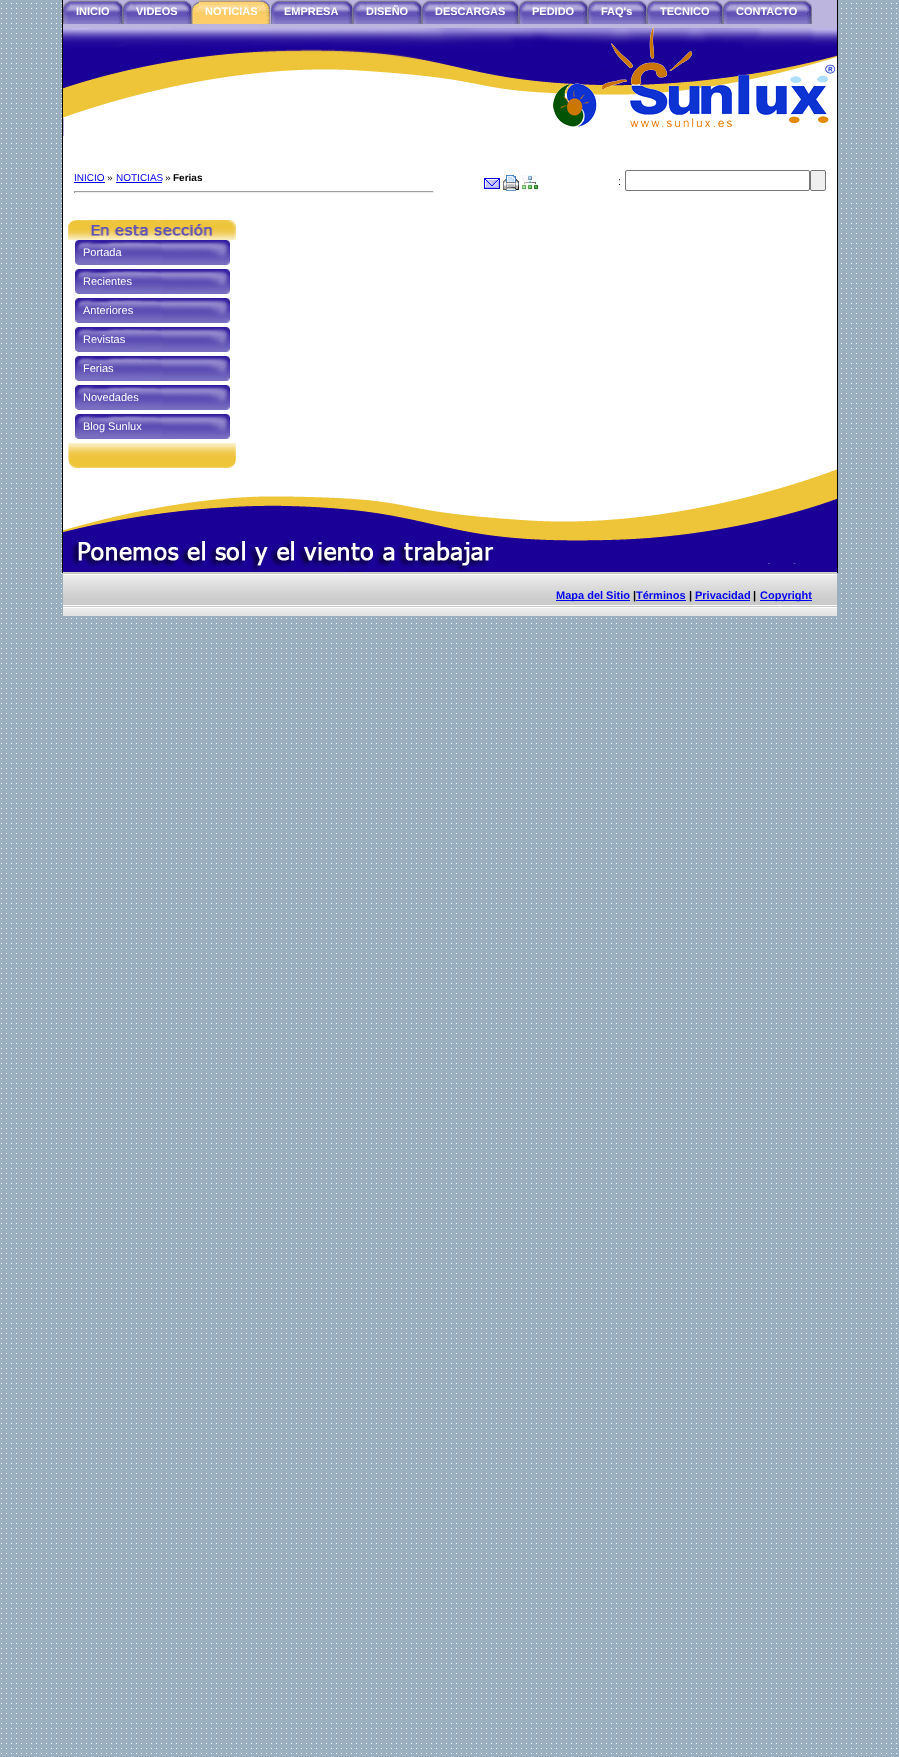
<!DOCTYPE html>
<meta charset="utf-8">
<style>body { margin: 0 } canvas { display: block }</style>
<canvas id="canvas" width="899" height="1757"></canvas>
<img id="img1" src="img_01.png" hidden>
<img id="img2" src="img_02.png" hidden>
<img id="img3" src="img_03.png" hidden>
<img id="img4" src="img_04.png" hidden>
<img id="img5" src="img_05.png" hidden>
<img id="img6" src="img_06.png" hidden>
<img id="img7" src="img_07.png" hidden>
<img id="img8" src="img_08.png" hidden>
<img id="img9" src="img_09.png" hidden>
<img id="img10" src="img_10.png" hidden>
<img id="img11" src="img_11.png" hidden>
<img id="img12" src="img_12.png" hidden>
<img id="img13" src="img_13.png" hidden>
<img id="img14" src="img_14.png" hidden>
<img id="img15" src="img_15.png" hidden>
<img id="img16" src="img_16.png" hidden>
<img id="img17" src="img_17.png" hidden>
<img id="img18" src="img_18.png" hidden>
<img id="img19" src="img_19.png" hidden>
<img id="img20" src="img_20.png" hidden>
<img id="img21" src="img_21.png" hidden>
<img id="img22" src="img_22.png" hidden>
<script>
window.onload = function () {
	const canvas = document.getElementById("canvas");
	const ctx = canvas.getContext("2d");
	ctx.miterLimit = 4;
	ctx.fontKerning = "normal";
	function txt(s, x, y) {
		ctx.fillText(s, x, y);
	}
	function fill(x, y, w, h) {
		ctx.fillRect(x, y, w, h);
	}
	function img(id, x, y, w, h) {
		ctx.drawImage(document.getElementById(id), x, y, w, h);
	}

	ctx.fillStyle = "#9AB0C0";
	fill(0, 0, 899, 1757);
	img("img1", 1, 3, 896, 1751);
	ctx.fillStyle = "#FFFFFF";
	fill(63, 136, 774, 333);
	ctx.fillStyle = "#000000";
	fill(837, 0, 1, 573);
	fill(62, 0, 1, 573);
	img("img2", 63, 0, 774, 136);
	img("img3", 63, 0, 7, 24);
	img("img4", 70, 0, 53, 24);
	img("img5", 123, 0, 7, 24);
	img("img6", 130, 0, 62, 24);
	img("img7", 192, 1, 7, 23);
	img("img8", 199, 0, 72, 24);
	img("img5", 271, 0, 7, 24);
	img("img9", 278, 0, 75, 24);
	img("img5", 353, 0, 7, 24);
	img("img10", 360, 0, 62, 24);
	img("img5", 422, 0, 7, 24);
	img("img11", 429, 0, 90, 24);
	img("img5", 519, 0, 7, 24);
	img("img10", 526, 0, 62, 24);
	img("img5", 588, 0, 7, 24);
	img("img12", 595, 0, 52, 24);
	img("img5", 647, 0, 7, 24);
	img("img13", 654, 0, 69, 24);
	img("img5", 723, 0, 7, 24);
	img("img14", 730, 0, 82, 24);
	ctx.fillStyle = "#0000EE";
	fill(74, 182, 31, 1);
	fill(116, 182, 46, 1);
	ctx.fillStyle = "#9F9F9F";
	fill(74, 191, 360, 1);
	ctx.fillStyle = "#EEEEEE";
	fill(433, 191, 1, 2);
	fill(74, 192, 360, 1);
	ctx.fillStyle = "#9F9F9F";
	fill(74, 191, 1, 2);
	img("img15", 484, 178, 16, 11);
	img("img16", 503, 175, 16, 16);
	img("img17", 522, 175, 16, 16);
	ctx.beginPath();
	ctx.roundRect(625.5, 170.5, 184, 20, 1.5);
	ctx.strokeStyle = "#767676";
	ctx.stroke();
	ctx.fillStyle = "#EFEFEF";
	ctx.beginPath();
	ctx.roundRect(810.5, 170.5, 15, 20, 1.5);
	ctx.fill();
	ctx.stroke();
	img("img18", 68, 220, 168, 20);
	img("img19", 75, 240, 155, 25);
	img("img19", 75, 269, 155, 25);
	img("img19", 75, 298, 155, 25);
	img("img19", 75, 327, 155, 25);
	img("img19", 75, 356, 155, 25);
	img("img19", 75, 385, 155, 25);
	img("img19", 75, 414, 155, 25);
	img("img20", 68, 443, 168, 25);
	img("img21", 63, 469, 774, 104);
	img("img22", 63, 573, 387, 43);
	img("img22", 450, 573, 387, 43);
	ctx.fillStyle = "#0000EE";
	fill(556, 600, 74, 1);
	fill(636, 600, 50, 1);
	fill(695, 600, 55, 1);
	fill(760, 600, 52, 1);
	ctx.font = "bold 11px Liberation Sans";
	ctx.fillStyle = "#FFFFFF";
	txt("INICIO", 76, 15);
	txt("VIDEOS", 136, 15);
	txt("NOTICIAS", 205, 15);
	txt("EMPRESA", 284, 15);
	txt("DISEÑO", 366, 15);
	txt("DESCARGAS", 435, 15);
	txt("PEDIDO", 532, 15);
	txt("FAQ's", 601, 15);
	txt("TECNICO", 660, 15);
	txt("CONTACTO", 736, 15);
	ctx.font = "10px Liberation Sans";
	ctx.fillStyle = "#0000EE";
	txt("INICIO", 74, 181);
	ctx.fillStyle = "#000000";
	txt("»", 107, 181);
	ctx.fillStyle = "#0000EE";
	txt("NOTICIAS", 116, 181);
	ctx.fillStyle = "#000000";
	txt("»", 165, 181);
	ctx.font = "bold 10px Liberation Sans";
	txt("Ferias", 173, 181);
	ctx.font = "11px Liberation Sans";
	txt(":", 618, 185);
	ctx.fillStyle = "#FFFFFF";
	txt("Portada", 83, 256);
	txt("Recientes", 83, 285);
	txt("Anteriores", 83, 314);
	txt("Revistas", 83, 343);
	txt("Ferias", 83, 372);
	txt("Novedades", 83, 401);
	txt("Blog Sunlux", 83, 430);
	ctx.font = "bold 11px Liberation Sans";
	ctx.fillStyle = "#0000EE";
	txt("Mapa del Sitio", 556, 599);
	ctx.fillStyle = "#000000";
	txt("|", 633, 599);
	ctx.fillStyle = "#0000EE";
	txt("Términos", 636, 599);
	ctx.fillStyle = "#000000";
	txt("|", 689, 599);
	ctx.fillStyle = "#0000EE";
	txt("Privacidad", 695, 599);
	ctx.fillStyle = "#000000";
	txt("|", 753, 599);
	ctx.fillStyle = "#0000EE";
	txt("Copyright", 760, 599);
};
</script>
